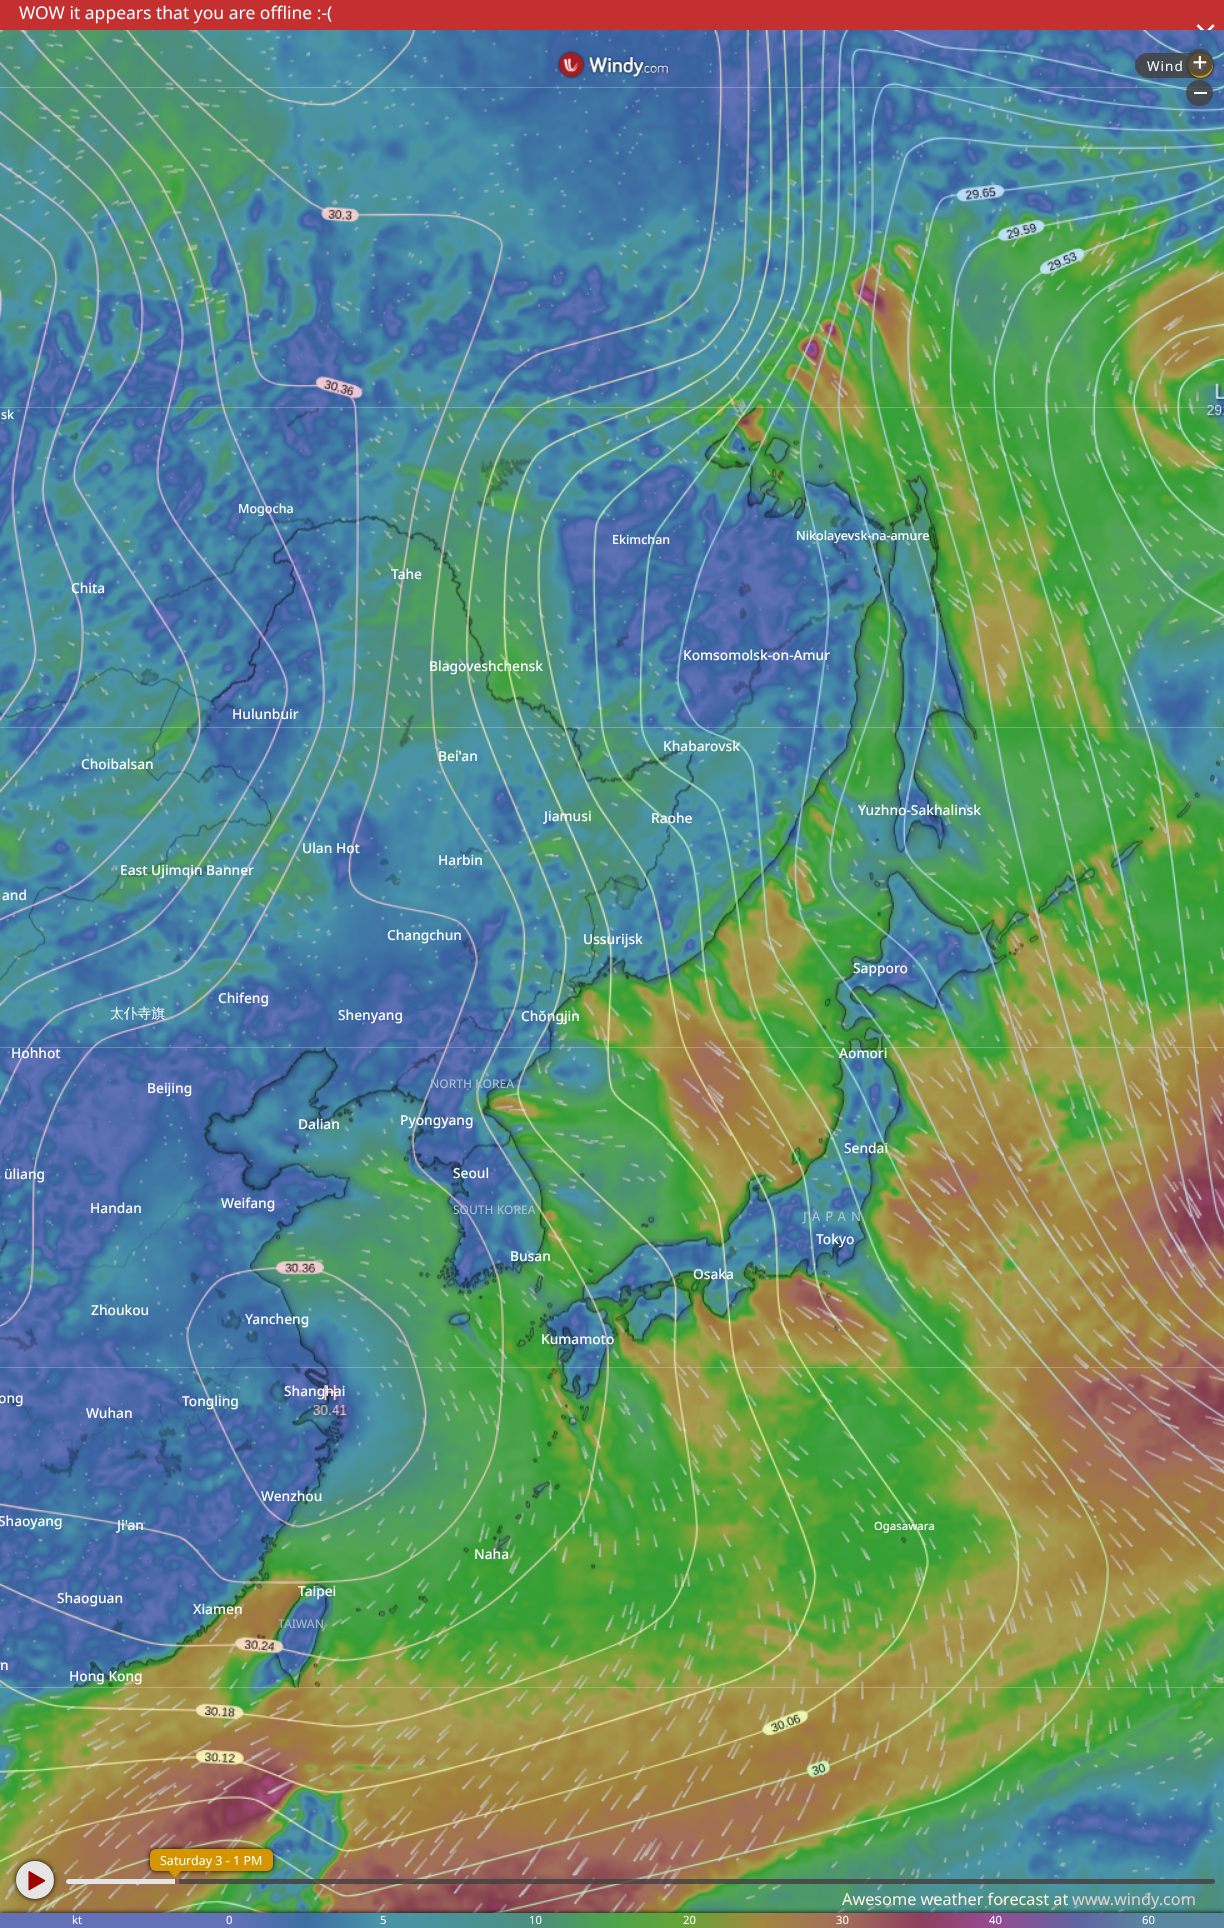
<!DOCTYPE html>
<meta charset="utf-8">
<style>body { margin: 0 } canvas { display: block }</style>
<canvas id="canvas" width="1224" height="1928"></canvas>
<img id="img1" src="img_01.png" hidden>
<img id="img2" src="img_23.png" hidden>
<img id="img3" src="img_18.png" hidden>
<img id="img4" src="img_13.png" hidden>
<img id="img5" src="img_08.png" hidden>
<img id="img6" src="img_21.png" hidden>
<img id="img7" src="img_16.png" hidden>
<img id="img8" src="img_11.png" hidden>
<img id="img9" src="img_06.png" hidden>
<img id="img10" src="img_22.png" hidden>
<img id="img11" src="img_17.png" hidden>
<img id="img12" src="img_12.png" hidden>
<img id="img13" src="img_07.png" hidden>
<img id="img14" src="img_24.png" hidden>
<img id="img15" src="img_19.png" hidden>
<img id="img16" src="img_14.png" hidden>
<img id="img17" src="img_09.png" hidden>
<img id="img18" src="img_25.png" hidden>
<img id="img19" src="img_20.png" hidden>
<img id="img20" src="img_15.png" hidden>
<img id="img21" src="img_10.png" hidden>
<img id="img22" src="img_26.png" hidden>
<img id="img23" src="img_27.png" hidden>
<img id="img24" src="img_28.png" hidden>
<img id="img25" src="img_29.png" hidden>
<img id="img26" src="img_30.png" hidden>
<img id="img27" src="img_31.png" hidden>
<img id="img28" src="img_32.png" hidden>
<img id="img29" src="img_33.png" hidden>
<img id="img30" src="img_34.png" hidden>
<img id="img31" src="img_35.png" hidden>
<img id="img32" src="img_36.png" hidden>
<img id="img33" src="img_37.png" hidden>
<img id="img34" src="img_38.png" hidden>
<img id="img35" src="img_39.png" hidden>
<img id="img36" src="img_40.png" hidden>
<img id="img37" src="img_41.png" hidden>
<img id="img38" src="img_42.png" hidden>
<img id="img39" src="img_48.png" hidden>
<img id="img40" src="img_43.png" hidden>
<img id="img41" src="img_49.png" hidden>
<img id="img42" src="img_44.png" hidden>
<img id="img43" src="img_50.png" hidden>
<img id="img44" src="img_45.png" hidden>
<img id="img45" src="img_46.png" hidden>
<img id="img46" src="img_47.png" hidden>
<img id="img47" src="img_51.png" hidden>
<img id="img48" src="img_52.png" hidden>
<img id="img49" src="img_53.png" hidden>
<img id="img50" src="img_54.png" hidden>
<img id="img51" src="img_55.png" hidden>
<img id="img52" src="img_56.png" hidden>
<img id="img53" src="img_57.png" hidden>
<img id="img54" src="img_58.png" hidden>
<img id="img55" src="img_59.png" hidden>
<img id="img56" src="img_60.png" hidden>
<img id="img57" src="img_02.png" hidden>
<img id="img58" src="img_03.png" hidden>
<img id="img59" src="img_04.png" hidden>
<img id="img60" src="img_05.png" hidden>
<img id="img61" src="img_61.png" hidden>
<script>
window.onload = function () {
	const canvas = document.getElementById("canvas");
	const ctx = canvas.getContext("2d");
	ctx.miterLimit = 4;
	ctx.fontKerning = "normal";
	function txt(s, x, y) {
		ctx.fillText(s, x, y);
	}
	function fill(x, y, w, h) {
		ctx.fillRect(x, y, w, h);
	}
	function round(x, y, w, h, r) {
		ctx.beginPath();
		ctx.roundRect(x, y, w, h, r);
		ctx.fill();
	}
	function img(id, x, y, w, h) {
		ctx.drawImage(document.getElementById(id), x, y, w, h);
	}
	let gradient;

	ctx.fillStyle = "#FFFFFF";
	fill(0, 0, 1224, 1928);
	ctx.fillStyle = "#C42F2F";
	fill(0, 0, 1224, 30);
	img("img1", 1196, 24, 19, 6);
	img("img2", 380, 727, 320, 321);
	img("img3", 380, 407, 320, 321);
	img("img4", 380, 87, 320, 321);
	img("img5", 380, 30, 320, 58);
	img("img6", 0, 727, 60, 321);
	img("img7", 0, 407, 60, 321);
	img("img8", 0, 87, 60, 321);
	img("img9", 0, 30, 60, 58);
	img("img10", 60, 727, 320, 321);
	img("img11", 60, 407, 320, 321);
	img("img12", 60, 87, 320, 321);
	img("img13", 60, 30, 320, 58);
	img("img14", 700, 727, 320, 321);
	img("img15", 700, 407, 320, 321);
	img("img16", 700, 87, 320, 321);
	img("img17", 700, 30, 320, 58);
	img("img18", 1020, 727, 204, 321);
	img("img19", 1020, 407, 204, 321);
	img("img20", 1020, 87, 204, 321);
	img("img21", 1020, 30, 204, 58);
	img("img22", 0, 1047, 60, 321);
	img("img23", 60, 1047, 320, 321);
	img("img24", 380, 1047, 320, 321);
	img("img25", 700, 1047, 320, 321);
	img("img26", 1020, 1047, 204, 321);
	img("img27", 0, 1367, 60, 321);
	img("img28", 60, 1367, 320, 321);
	img("img29", 380, 1367, 320, 321);
	img("img30", 700, 1367, 320, 321);
	img("img31", 1020, 1367, 204, 321);
	img("img32", 0, 1687, 60, 226);
	img("img33", 60, 1687, 320, 226);
	img("img34", 380, 1687, 320, 226);
	img("img35", 700, 1687, 320, 226);
	img("img36", 1020, 1687, 204, 226);
	img("img37", 0, 30, 1224, 1883);
	img("img38", 0, 700, 60, 18);
	img("img39", 60, 727, 320, 321);
	img("img40", 60, 407, 320, 321);
	img("img41", 380, 727, 320, 321);
	img("img42", 380, 458, 250, 270);
	img("img43", 700, 727, 320, 321);
	img("img44", 703, 407, 277, 321);
	img("img45", 1223, 723, 1, 5);
	img("img46", 0, 885, 60, 96);
	img("img47", 1020, 760, 201, 189);
	img("img48", 0, 1067, 60, 285);
	img("img49", 60, 1047, 320, 321);
	img("img50", 380, 1047, 320, 321);
	img("img51", 700, 1047, 207, 285);
	img("img52", 0, 1389, 60, 92);
	img("img53", 60, 1367, 320, 321);
	img("img54", 380, 1367, 228, 250);
	img("img55", 901, 1536, 6, 8);
	img("img56", 0, 30, 1224, 1883);
	img("img57", 557, 50, 29, 29);
	img("img58", 587, 55, 83, 24);
	ctx.fillStyle = "rgba(68, 65, 65, 0.84)";
	round(1135, 53, 78, 25, 12.5);
	ctx.fillStyle = "#000000";
	ctx.filter = "blur(1.5px)";
	ctx.beginPath();
	ctx.roundRect(1188, 53, 25, 25, 12.5);
	ctx.fill();
	ctx.filter = "none";
	ctx.fillStyle = "#D49500";
	ctx.beginPath();
	ctx.arc(1200.5, 65.5, 12.5, 0, Math.PI * 2);
	ctx.fill();
	img("img59", 1192, 61, 15, 10);
	ctx.fillStyle = "rgba(68, 65, 65, 0.84)";
	ctx.beginPath();
	ctx.arc(1199.5, 62.5, 13.5, 0, Math.PI * 2);
	ctx.fill();
	img("img60", 1193, 55, 14, 14);
	round(1186, 80, 27, 26, 13);
	ctx.fillStyle = "#FFFFFF";
	fill(1194, 92, 13, 2);
	ctx.fillStyle = "#000000";
	ctx.filter = "blur(2.5px)";
	ctx.beginPath();
	ctx.roundRect(16, 1861, 38, 38, 19);
	ctx.fill();
	ctx.filter = "none";
	ctx.fillStyle = "#E5E5E5";
	ctx.beginPath();
	ctx.arc(35, 1880, 19, 0, Math.PI * 2);
	ctx.fill();
	img("img61", 28, 1871, 18, 20);
	ctx.fillStyle = "#000000";
	ctx.filter = "blur(2.5px)";
	ctx.beginPath();
	ctx.roundRect(150, 1849, 123, 22, 6);
	ctx.fill();
	ctx.filter = "none";
	ctx.fillStyle = "#D49500";
	round(150, 1849, 123, 22, 6);
	ctx.beginPath();
	ctx.moveTo(169, 1871);
	ctx.lineTo(181, 1871);
	ctx.lineTo(175, 1877.5);
	ctx.closePath();
	ctx.fill();
	ctx.fillStyle = "rgba(68, 65, 65, 0.84)";
	round(66, 1879, 1149, 5, 2.5);
	ctx.fillStyle = "#E5E5E5";
	ctx.beginPath();
	ctx.roundRect(66, 1879, 109, 5, [2.5, 0, 0, 2.5]);
	ctx.fill();
	ctx.fillStyle = "#946051";
	fill(175, 1879, 4, 5);
	ctx.fillStyle = "#000000";
	ctx.filter = "blur(2.5px)";
	ctx.beginPath();
	ctx.rect(0, 1913, 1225, 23);
	ctx.fill();
	ctx.filter = "none";
	gradient = ctx.createLinearGradient(0, 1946, 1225, 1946);
	gradient.addColorStop(0, "#6271B8");
	gradient.addColorStop(0.19, "#6271B8");
	gradient.addColorStop(0.25, "#3D6EA3");
	gradient.addColorStop(0.31, "#4A94AA");
	gradient.addColorStop(0.38, "#4A9294");
	gradient.addColorStop(0.44, "#4D8E7C");
	gradient.addColorStop(0.5, "#4CA44C");
	gradient.addColorStop(0.56, "#67A436");
	gradient.addColorStop(0.62, "#A28740");
	gradient.addColorStop(0.69, "#A26D5C");
	gradient.addColorStop(0.75, "#8D3F5C");
	gradient.addColorStop(0.81, "#974B91");
	gradient.addColorStop(0.88, "#5F64A0");
	gradient.addColorStop(0.94, "#5B88A1");
	gradient.addColorStop(1, "#5B88A1");
	ctx.fillStyle = gradient;
	fill(0, 1913, 1224, 15);
	ctx.font = "17.5px Noto Sans";
	ctx.fillStyle = "#FFFFFF";
	txt("WOW it appears that you are offline :-(", 19, 19);
	ctx.letterSpacing = "1px";
	ctx.font = "13.5px Noto Sans";
	txt("Wind", 1147, 71);
	ctx.letterSpacing = "0px";
	ctx.font = "500 12.5px Noto Sans";
	txt("sk", 1, 419);
	txt("Mogocha", 238, 513);
	ctx.font = "500 13.75px Noto Sans";
	txt("Chita", 71, 593);
	txt("Hulunbuir", 232, 719);
	ctx.font = "500 12.5px Noto Sans";
	txt("Ekimchan", 612, 544);
	ctx.font = "500 13.75px Noto Sans";
	txt("Tahe", 391, 579);
	txt("Blagoveshchensk", 429, 671);
	ctx.font = "500 12.5px Noto Sans";
	txt("Nikolayevsk-na-amure", 796, 540);
	ctx.font = "500 13.75px Noto Sans";
	txt("Komsomolsk-on-Amur", 683, 660);
	txt("and", 2, 900);
	txt("Choibalsan", 81, 769);
	txt("Ulan Hot", 302, 853);
	txt("East Ujimqin Banner", 120, 875);
	txt("Chifeng", 218, 1003);
	ctx.font = "500 13.75px WenQuanYi Zen Hei";
	txt("太仆寺旗", 110, 1018);
	ctx.font = "500 13.75px Noto Sans";
	txt("Shenyang", 338, 1020);
	txt("Bei'an", 438, 761);
	txt("Jiamusi", 544, 821);
	txt("Raohe", 651, 823);
	txt("Harbin", 438, 865);
	txt("Changchun", 387, 940);
	txt("Ussurijsk", 583, 944);
	txt("Chŏngjin", 521, 1021);
	txt("Khabarovsk", 663, 751);
	txt("Yuzhno-Sakhalinsk", 858, 815);
	txt("Sapporo", 853, 973);
	txt("Hohhot", 11, 1058);
	txt("üliang", 4, 1179);
	txt("Beijing", 147, 1093);
	txt("Dalian", 298, 1129);
	txt("Handan", 90, 1213);
	txt("Weifang", 221, 1208);
	txt("Zhoukou", 91, 1315);
	txt("Yancheng", 245, 1324);
	ctx.font = "500 12px Noto Sans";
	ctx.fillStyle = "#A3BDCE";
	txt("NORTH KOREA", 430, 1088);
	ctx.font = "500 13.75px Noto Sans";
	ctx.fillStyle = "#FFFFFF";
	txt("Pyongyang", 400, 1125);
	txt("Seoul", 453, 1178);
	ctx.font = "500 12px Noto Sans";
	ctx.fillStyle = "#A3BDCE";
	txt("SOUTH KOREA", 453, 1214);
	ctx.font = "500 13.75px Noto Sans";
	ctx.fillStyle = "#FFFFFF";
	txt("Busan", 510, 1261);
	txt("Kumamoto", 541, 1344);
	txt("Aomori", 839, 1058);
	txt("Sendai", 844, 1153);
	ctx.letterSpacing = "5px";
	ctx.font = "500 13px Noto Sans";
	ctx.fillStyle = "#A4C5CF";
	txt("JAPAN", 803, 1221);
	ctx.letterSpacing = "0px";
	ctx.font = "500 13.75px Noto Sans";
	ctx.fillStyle = "#FFFFFF";
	txt("Tokyo", 816, 1244);
	txt("Osaka", 693, 1279);
	txt("ong", -2, 1403);
	txt("Shaoyang", -2, 1526);
	txt("n", 0, 1670);
	txt("Shanghai", 284, 1396);
	txt("Tongling", 182, 1406);
	txt("Wuhan", 86, 1418);
	txt("Wenzhou", 261, 1501);
	txt("Ji'an", 117, 1530);
	txt("Shaoguan", 57, 1603);
	txt("Taipei", 298, 1596);
	txt("Xiamen", 193, 1614);
	ctx.font = "500 12px Noto Sans";
	ctx.fillStyle = "#A1B7C6";
	txt("TAIWAN", 278, 1628);
	ctx.font = "500 13.75px Noto Sans";
	ctx.fillStyle = "#FFFFFF";
	txt("Hong Kong", 69, 1681);
	ctx.font = "500 11.25px Noto Sans";
	txt("Ogasawara", 874, 1530);
	ctx.font = "500 13.75px Noto Sans";
	txt("Naha", 474, 1559);
	ctx.font = "12.5px Noto Sans";
	txt("Saturday 3 - 1 PM", 160, 1865);
	ctx.font = "16.25px Noto Sans";
	ctx.fillStyle = "#FFF3E1";
	txt("Awesome weather forecast at", 842, 1905);
	ctx.fillStyle = "#E6CECE";
	txt("www.windy.com", 1072, 1905);
	ctx.font = "11.25px Noto Sans";
	ctx.fillStyle = "#FFFFFF";
	txt("kt", 72, 1924);
	txt("0", 226, 1924);
	txt("5", 380, 1924);
	txt("10", 529, 1924);
	txt("20", 683, 1924);
	txt("30", 836, 1924);
	txt("40", 989, 1924);
	txt("60", 1142, 1924);
};
</script>
